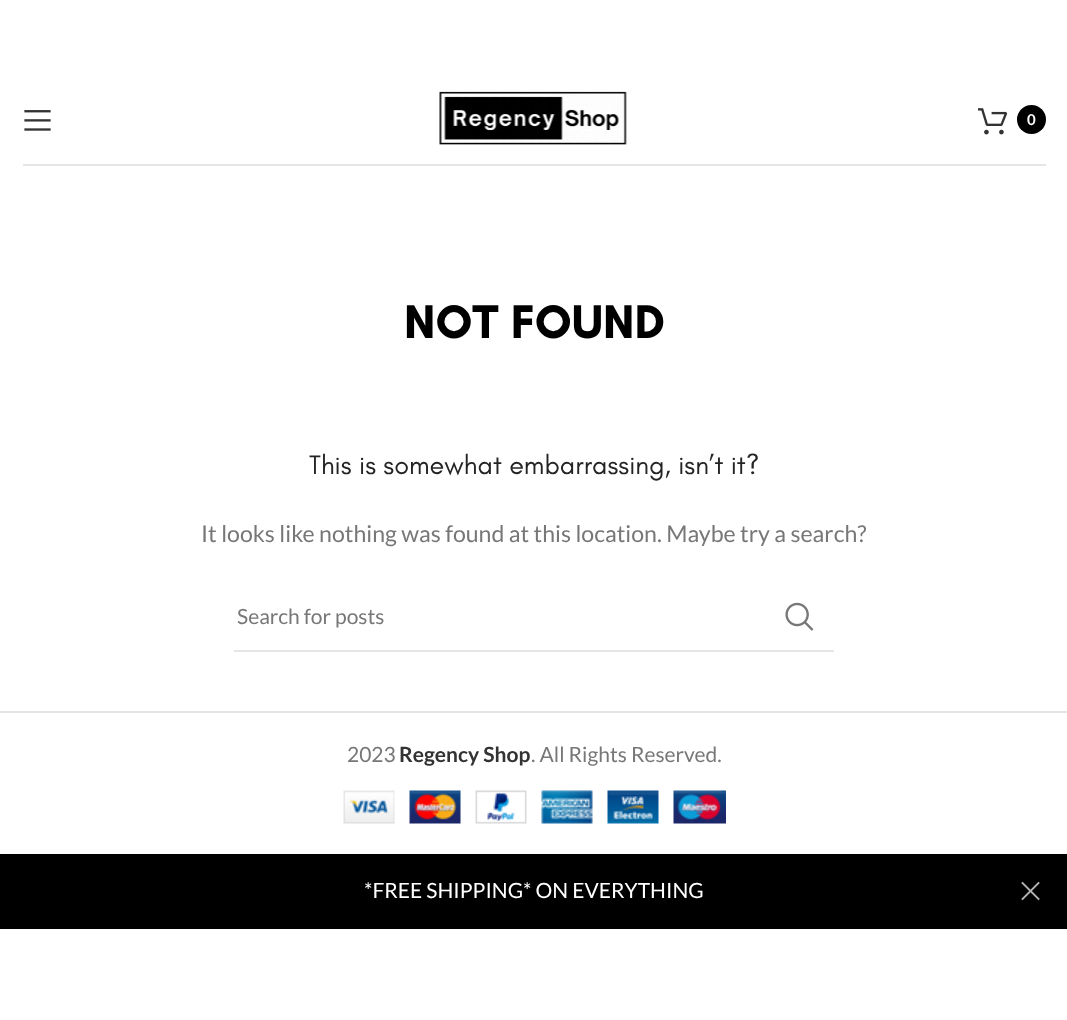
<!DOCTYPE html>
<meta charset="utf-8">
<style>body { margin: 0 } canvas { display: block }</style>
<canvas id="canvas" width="1067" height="1020"></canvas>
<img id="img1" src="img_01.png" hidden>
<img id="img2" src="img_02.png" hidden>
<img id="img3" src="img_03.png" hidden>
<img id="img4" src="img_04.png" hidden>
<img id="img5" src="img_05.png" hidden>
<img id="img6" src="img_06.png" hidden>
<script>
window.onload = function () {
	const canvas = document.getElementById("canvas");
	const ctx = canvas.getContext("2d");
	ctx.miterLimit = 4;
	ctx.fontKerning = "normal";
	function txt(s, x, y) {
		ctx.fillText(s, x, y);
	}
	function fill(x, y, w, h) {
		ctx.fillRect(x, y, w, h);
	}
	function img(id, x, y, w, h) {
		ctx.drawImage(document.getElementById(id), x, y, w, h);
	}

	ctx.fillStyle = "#FFFFFF";
	fill(0, 0, 1067, 1020);
	ctx.fillStyle = "#E6E6E6";
	fill(23, 164, 1023, 2);
	img("img1", 24, 110, 27, 21);
	img("img2", 439, 91, 188, 54);
	img("img3", 978, 108, 30, 27);
	ctx.fillStyle = "#000000";
	ctx.beginPath();
	ctx.arc(1031.5, 119.5, 14.5, 0, Math.PI * 2);
	ctx.fill();
	ctx.fillStyle = "#E6E6E6";
	fill(234, 650, 600, 2);
	img("img4", 785, 602, 29, 29);
	ctx.fillStyle = "#E4E4E4";
	fill(0, 711, 1067, 2);
	img("img5", 343, 790, 383, 34);
	ctx.fillStyle = "#000000";
	fill(0, 854, 1067, 75);
	img("img6", 1021, 881, 19, 20);
	ctx.font = "bold 15px Lato";
	ctx.fillStyle = "#FFFFFF";
	txt("0", 1027, 125);
	ctx.font = "bold 48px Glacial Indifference";
	ctx.fillStyle = "#000000";
	txt("NOT FOUND", 404, 338);
	ctx.font = "27px Glacial Indifference";
	ctx.fillStyle = "#242424";
	txt("This is somewhat embarrassing, isn’t it?", 309, 474);
	ctx.font = "23.1px Lato";
	ctx.fillStyle = "#777777";
	txt("It looks like nothing was found at this location. Maybe try a search?", 201, 542);
	ctx.font = "21px Lato";
	txt("Search for posts", 237, 624);
	txt("2023", 347, 762);
	ctx.font = "bold 21px Lato";
	ctx.fillStyle = "#333333";
	txt("Regency Shop", 399, 762);
	ctx.font = "21px Lato";
	ctx.fillStyle = "#777777";
	txt(". All Rights Reserved.", 531, 762);
	ctx.fillStyle = "#FFFFFF";
	txt("*FREE SHIPPING* ON EVERYTHING", 364, 898);
};
</script>
